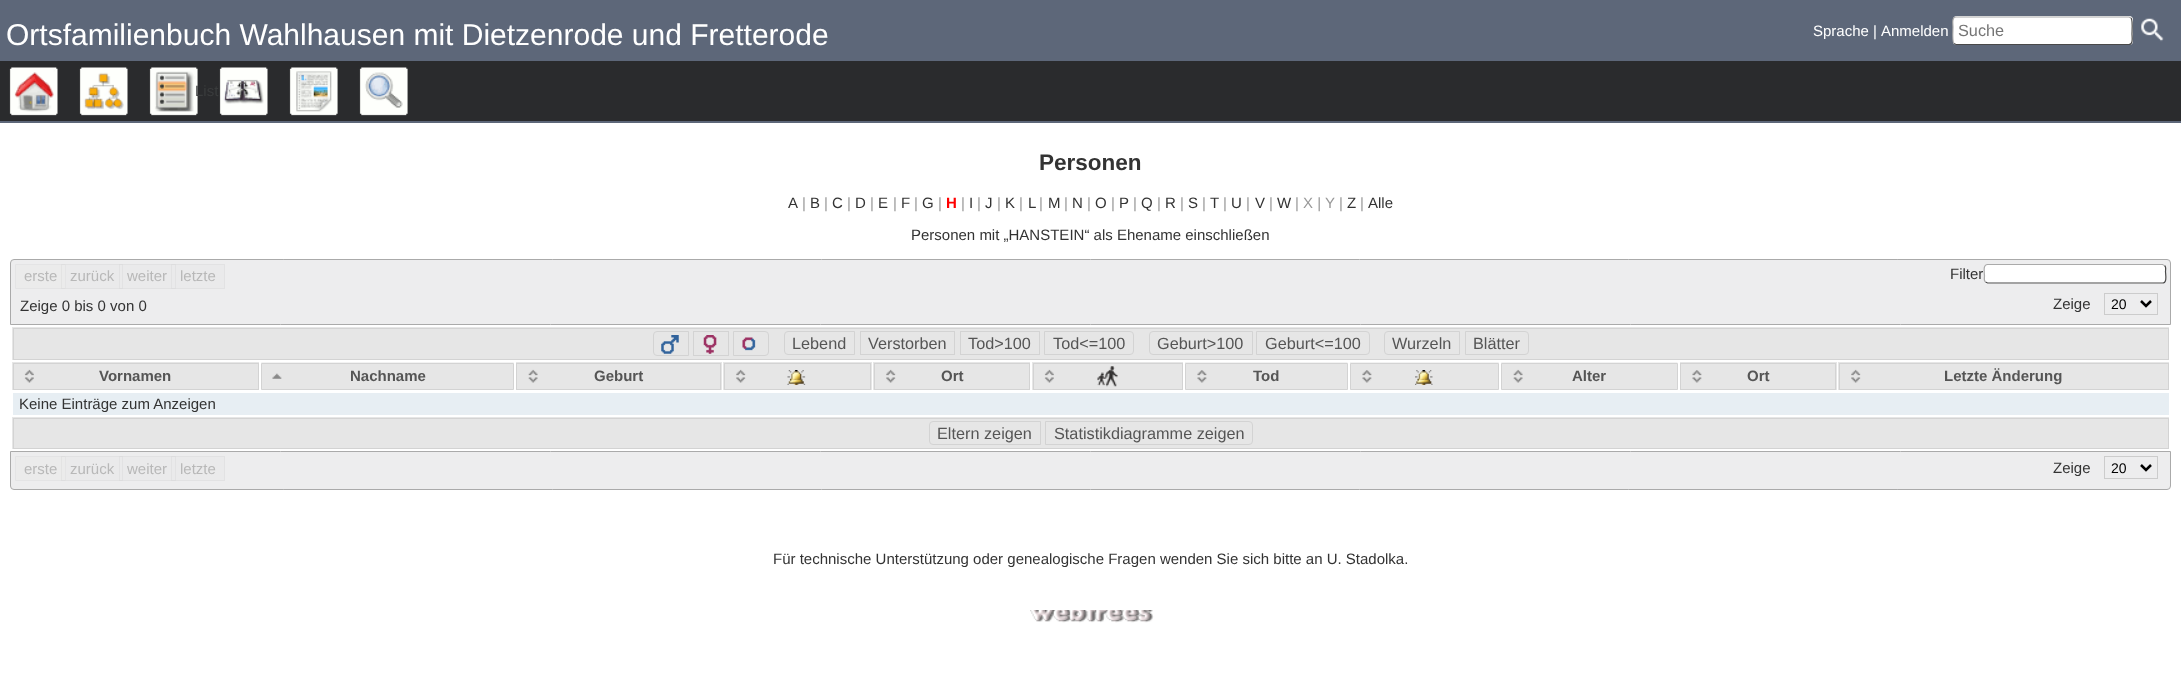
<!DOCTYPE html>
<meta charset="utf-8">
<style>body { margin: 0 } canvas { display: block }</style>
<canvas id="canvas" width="2181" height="676"></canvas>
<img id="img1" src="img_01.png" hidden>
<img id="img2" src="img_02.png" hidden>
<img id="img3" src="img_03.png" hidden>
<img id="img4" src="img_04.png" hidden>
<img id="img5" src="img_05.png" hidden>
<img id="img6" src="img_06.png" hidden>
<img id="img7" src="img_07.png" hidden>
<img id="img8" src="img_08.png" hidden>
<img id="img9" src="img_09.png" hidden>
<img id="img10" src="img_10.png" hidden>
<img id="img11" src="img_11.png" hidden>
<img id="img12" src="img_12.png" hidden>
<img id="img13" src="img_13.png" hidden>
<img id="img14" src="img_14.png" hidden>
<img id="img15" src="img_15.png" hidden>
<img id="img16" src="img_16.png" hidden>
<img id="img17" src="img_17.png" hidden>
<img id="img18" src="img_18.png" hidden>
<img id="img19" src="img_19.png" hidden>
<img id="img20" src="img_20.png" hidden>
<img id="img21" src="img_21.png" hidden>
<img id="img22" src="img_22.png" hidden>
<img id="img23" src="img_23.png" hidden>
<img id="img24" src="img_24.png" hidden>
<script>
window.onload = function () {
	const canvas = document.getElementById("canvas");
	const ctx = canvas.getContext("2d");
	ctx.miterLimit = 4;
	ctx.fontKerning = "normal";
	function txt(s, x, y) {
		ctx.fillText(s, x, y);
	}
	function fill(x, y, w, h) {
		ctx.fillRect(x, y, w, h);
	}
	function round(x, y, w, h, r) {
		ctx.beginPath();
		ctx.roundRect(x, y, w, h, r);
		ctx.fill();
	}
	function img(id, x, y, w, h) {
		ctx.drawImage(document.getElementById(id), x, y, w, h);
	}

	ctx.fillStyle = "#FFFFFF";
	fill(0, 0, 2181, 676);
	ctx.fillStyle = "#5D6779";
	fill(0, 0, 2181, 123);
	ctx.fillStyle = "#FFFFFF";
	round(1953, 16, 180, 29, 4);
	ctx.beginPath();
	ctx.moveTo(2131, 18);
	ctx.bezierCurveTo(2133, 20, 2132, 31, 2132, 34);
	ctx.bezierCurveTo(2132, 36.5, 2133.5, 44.5, 2129, 44.5);
	ctx.lineTo(1956, 44.5);
	ctx.lineTo(1954, 43.5);
	ctx.strokeStyle = "#494949";
	ctx.lineWidth = 1.2;
	ctx.stroke();
	ctx.beginPath();
	ctx.moveTo(1954, 43.5);
	ctx.bezierCurveTo(1952, 41.5, 1953, 30, 1953, 27);
	ctx.bezierCurveTo(1953, 24.5, 1951.5, 17, 1956, 17);
	ctx.lineTo(2129, 17);
	ctx.lineTo(2131, 18);
	ctx.strokeStyle = "#AAAAAA";
	ctx.stroke();
	img("img1", 2141, 18, 23, 24);
	ctx.fillStyle = "#2A2B2D";
	fill(0, 61, 2181, 60);
	img("img2", 9, 67, 49, 49);
	img("img3", 79, 67, 49, 49);
	img("img4", 149, 67, 49, 49);
	img("img5", 219, 67, 49, 49);
	img("img6", 289, 67, 49, 49);
	img("img7", 359, 67, 49, 49);
	ctx.fillStyle = "#EDEDEE";
	ctx.beginPath();
	ctx.roundRect(10.5, 259.5, 2160, 65, [3.5, 3.5, 0, 0]);
	ctx.fill();
	ctx.lineWidth = 1;
	ctx.stroke();
	ctx.fillStyle = "#EBEBEB";
	ctx.beginPath();
	ctx.rect(15.5, 264.5, 50, 24);
	ctx.fill();
	ctx.strokeStyle = "#E4E4E5";
	ctx.stroke();
	ctx.fillStyle = "rgba(230, 230, 230, 0.35)";
	fill(66, 264, 57, 25);
	ctx.strokeStyle = "rgba(211, 211, 211, 0.35)";
	ctx.strokeRect(61.5, 264.5, 61, 24);
	fill(123, 264, 53, 25);
	ctx.strokeRect(119.5, 264.5, 56, 24);
	fill(176, 264, 49, 25);
	ctx.strokeRect(171.5, 264.5, 53, 24);
	ctx.fillStyle = "#FFFFFF";
	round(1984, 264, 182, 20, 4);
	ctx.beginPath();
	ctx.moveTo(2164.5, 265.5);
	ctx.bezierCurveTo(2166.5, 267, 2165.5, 270, 2165.5, 271.5);
	ctx.bezierCurveTo(2165.5, 274, 2167.5, 283, 2162.5, 283);
	ctx.lineTo(1987.5, 283);
	ctx.lineTo(1985.5, 282);
	ctx.strokeStyle = "#494949";
	ctx.lineWidth = 1.2;
	ctx.stroke();
	ctx.strokeStyle = "#CCCCCC";
	ctx.lineWidth = 1;
	ctx.strokeRect(2104.5, 293.5, 53, 21);
	ctx.beginPath();
	ctx.moveTo(2141, 301);
	ctx.lineTo(2146, 306);
	ctx.lineTo(2151, 301);
	ctx.strokeStyle = "#000000";
	ctx.lineWidth = 2.5;
	ctx.stroke();
	ctx.fillStyle = "#E6E6E6";
	fill(12, 327, 2157, 33);
	ctx.strokeStyle = "#D3D3D3";
	ctx.lineWidth = 1;
	ctx.strokeRect(13.5, 328.5, 2155, 31);
	ctx.beginPath();
	ctx.roundRect(653.5, 331.5, 35, 24, [3.5, 0, 0, 3.5]);
	ctx.stroke();
	img("img8", 661, 335, 18, 19);
	ctx.strokeRect(693.5, 331.5, 35, 24);
	img("img9", 703, 335, 14, 19);
	ctx.beginPath();
	ctx.roundRect(733.5, 331.5, 35, 24, [0, 3.5, 3.5, 0]);
	ctx.stroke();
	img("img10", 742, 337, 14, 14);
	ctx.beginPath();
	ctx.roundRect(784.5, 331.5, 70, 23, [3.5, 0, 0, 3.5]);
	ctx.stroke();
	ctx.strokeRect(860.5, 331.5, 94, 23);
	ctx.strokeRect(960.5, 331.5, 79, 23);
	ctx.beginPath();
	ctx.roundRect(1044.5, 331.5, 89, 23, [0, 3.5, 3.5, 0]);
	ctx.stroke();
	ctx.beginPath();
	ctx.roundRect(1149.5, 331.5, 103, 23, [3.5, 0, 0, 3.5]);
	ctx.stroke();
	ctx.beginPath();
	ctx.roundRect(1256.5, 331.5, 113, 23, [0, 3.5, 3.5, 0]);
	ctx.stroke();
	ctx.beginPath();
	ctx.roundRect(1384.5, 331.5, 75, 23, [3.5, 0, 0, 3.5]);
	ctx.stroke();
	ctx.beginPath();
	ctx.roundRect(1465.5, 331.5, 63, 23, [0, 3.5, 3.5, 0]);
	ctx.stroke();
	fill(12, 362, 247, 28);
	ctx.strokeRect(13.5, 363.5, 245, 26);
	img("img11", 24, 369, 10, 14);
	ctx.beginPath();
	ctx.rect(261.5, 363.5, 252, 26);
	ctx.fill();
	ctx.stroke();
	img("img12", 261, 362, 253, 1);
	img("img13", 272, 373, 10, 6);
	fill(516, 362, 206, 28);
	ctx.strokeRect(516.5, 363.5, 204, 26);
	img("img14", 528, 369, 10, 14);
	fill(723, 362, 149, 28);
	ctx.strokeRect(724.5, 363.5, 146, 26);
	img("img15", 736, 369, 10, 14);
	img("img16", 787, 370, 19, 15);
	fill(873, 362, 157, 28);
	ctx.strokeRect(874.5, 363.5, 155, 26);
	img("img17", 886, 369, 10, 14);
	fill(1032, 362, 151, 28);
	ctx.strokeRect(1033.5, 363.5, 149, 26);
	img("img11", 1044, 369, 10, 14);
	img("img18", 1097, 366, 21, 21);
	ctx.beginPath();
	ctx.rect(1185.5, 363.5, 162, 26);
	ctx.fill();
	ctx.stroke();
	img("img19", 1185, 362, 163, 1);
	img("img20", 1197, 370, 10, 13);
	ctx.beginPath();
	ctx.rect(1350.5, 363.5, 148, 26);
	ctx.fill();
	ctx.stroke();
	img("img21", 1350, 362, 149, 1);
	img("img20", 1362, 370, 10, 13);
	img("img22", 1415, 370, 18, 15);
	ctx.beginPath();
	ctx.rect(1501.5, 363.5, 176, 26);
	ctx.fill();
	ctx.stroke();
	img("img23", 1501, 362, 177, 1);
	img("img14", 1513, 369, 10, 14);
	fill(1680, 362, 157, 28);
	ctx.strokeRect(1680.5, 363.5, 155, 26);
	img("img20", 1692, 370, 10, 13);
	fill(1838, 362, 331, 28);
	ctx.strokeRect(1839.5, 363.5, 329, 26);
	img("img15", 1851, 369, 10, 14);
	ctx.fillStyle = "#E7EEF3";
	fill(13, 393, 2156, 22);
	ctx.fillStyle = "#E6E6E6";
	fill(12, 417, 2157, 32);
	ctx.strokeRect(13.5, 418.5, 2155, 30);
	ctx.beginPath();
	ctx.roundRect(929.5, 421.5, 111, 23, [3.5, 0, 0, 3.5]);
	ctx.stroke();
	ctx.beginPath();
	ctx.roundRect(1045.5, 421.5, 207, 23, [0, 3.5, 3.5, 0]);
	ctx.stroke();
	ctx.fillStyle = "#EDEDEE";
	ctx.beginPath();
	ctx.roundRect(10.5, 451.5, 2160, 38, [0, 0, 3.5, 3.5]);
	ctx.fill();
	ctx.strokeStyle = "#AAAAAA";
	ctx.stroke();
	ctx.fillStyle = "#EBEBEB";
	ctx.beginPath();
	ctx.rect(15.5, 456.5, 50, 24);
	ctx.fill();
	ctx.strokeStyle = "#E4E4E5";
	ctx.stroke();
	ctx.fillStyle = "rgba(230, 230, 230, 0.35)";
	fill(66, 456, 57, 25);
	ctx.strokeStyle = "rgba(211, 211, 211, 0.35)";
	ctx.strokeRect(61.5, 456.5, 61, 24);
	fill(123, 456, 53, 25);
	ctx.strokeRect(119.5, 456.5, 56, 24);
	fill(176, 456, 49, 25);
	ctx.strokeRect(171.5, 456.5, 53, 24);
	ctx.strokeStyle = "#CCCCCC";
	ctx.strokeRect(2104.5, 456.5, 53, 22);
	ctx.beginPath();
	ctx.moveTo(2141, 465);
	ctx.lineTo(2146, 470);
	ctx.lineTo(2151, 465);
	ctx.strokeStyle = "#000000";
	ctx.lineWidth = 2.5;
	ctx.stroke();
	img("img24", 1030, 610, 124, 13);
	ctx.font = "30px Liberation Sans";
	ctx.fillStyle = "#FFFFFF";
	txt("Ortsfamilienbuch Wahlhausen mit Dietzenrode und Fretterode", 6, 45);
	ctx.font = "15px Liberation Sans";
	txt("Sprache", 1813, 36);
	txt("|", 1873, 36);
	txt("Anmelden", 1881, 36);
	ctx.font = "16.25px Liberation Sans";
	ctx.fillStyle = "#757575";
	txt("Suche", 1958, 36);
	ctx.font = "15px Liberation Sans";
	ctx.fillStyle = "#3A3C3D";
	txt("List", 195, 96);
	ctx.font = "bold 22.5px Liberation Sans";
	ctx.fillStyle = "#333333";
	txt("Personen", 1039, 170);
	ctx.font = "15px Liberation Sans";
	txt("A", 788, 208);
	ctx.fillStyle = "#999999";
	txt("|", 802, 208);
	ctx.fillStyle = "#333333";
	txt("B", 810, 208);
	ctx.fillStyle = "#999999";
	txt("|", 824, 208);
	ctx.fillStyle = "#333333";
	txt("C", 832, 208);
	ctx.fillStyle = "#999999";
	txt("|", 847, 208);
	ctx.fillStyle = "#333333";
	txt("D", 855, 208);
	ctx.fillStyle = "#999999";
	txt("|", 870, 208);
	ctx.fillStyle = "#333333";
	txt("E", 878, 208);
	ctx.fillStyle = "#999999";
	txt("|", 893, 208);
	ctx.fillStyle = "#333333";
	txt("F", 901, 208);
	ctx.fillStyle = "#999999";
	txt("|", 914, 208);
	ctx.fillStyle = "#333333";
	txt("G", 922, 208);
	ctx.fillStyle = "#999999";
	txt("|", 938, 208);
	ctx.font = "bold 15px Liberation Sans";
	ctx.fillStyle = "#FF0000";
	txt("H", 946, 208);
	ctx.font = "15px Liberation Sans";
	ctx.fillStyle = "#999999";
	txt("|", 961, 208);
	ctx.fillStyle = "#333333";
	txt("I", 969, 208);
	ctx.fillStyle = "#999999";
	txt("|", 977, 208);
	ctx.fillStyle = "#333333";
	txt("J", 985, 208);
	ctx.fillStyle = "#999999";
	txt("|", 997, 208);
	ctx.fillStyle = "#333333";
	txt("K", 1005, 208);
	ctx.fillStyle = "#999999";
	txt("|", 1019, 208);
	ctx.fillStyle = "#333333";
	txt("L", 1028, 208);
	ctx.fillStyle = "#999999";
	txt("|", 1039, 208);
	ctx.fillStyle = "#333333";
	txt("M", 1048, 208);
	ctx.fillStyle = "#999999";
	txt("|", 1064, 208);
	ctx.fillStyle = "#333333";
	txt("N", 1072, 208);
	ctx.fillStyle = "#999999";
	txt("|", 1087, 208);
	ctx.fillStyle = "#333333";
	txt("O", 1095, 208);
	ctx.fillStyle = "#999999";
	txt("|", 1111, 208);
	ctx.fillStyle = "#333333";
	txt("P", 1119, 208);
	ctx.fillStyle = "#999999";
	txt("|", 1133, 208);
	ctx.fillStyle = "#333333";
	txt("Q", 1141, 208);
	ctx.fillStyle = "#999999";
	txt("|", 1157, 208);
	ctx.fillStyle = "#333333";
	txt("R", 1165, 208);
	ctx.fillStyle = "#999999";
	txt("|", 1180, 208);
	ctx.fillStyle = "#333333";
	txt("S", 1188, 208);
	ctx.fillStyle = "#999999";
	txt("|", 1202, 208);
	ctx.fillStyle = "#333333";
	txt("T", 1210, 208);
	ctx.fillStyle = "#999999";
	txt("|", 1223, 208);
	ctx.fillStyle = "#333333";
	txt("U", 1231, 208);
	ctx.fillStyle = "#999999";
	txt("|", 1246, 208);
	ctx.fillStyle = "#333333";
	txt("V", 1255, 208);
	ctx.fillStyle = "#999999";
	txt("|", 1269, 208);
	ctx.fillStyle = "#333333";
	txt("W", 1277, 208);
	ctx.fillStyle = "#999999";
	txt("| X | Y |", 1295, 208);
	ctx.fillStyle = "#333333";
	txt("Z", 1347, 208);
	ctx.fillStyle = "#999999";
	txt("|", 1360, 208);
	ctx.fillStyle = "#333333";
	txt("Alle", 1368, 208);
	txt("Personen mit „HANSTEIN“ als Ehename einschließen", 911, 240);
	ctx.fillStyle = "#B8B8B8";
	txt("erste", 24, 281);
	txt("zurück", 70, 281);
	txt("weiter", 127, 281);
	txt("letzte", 180, 281);
	ctx.fillStyle = "#333333";
	txt("Filter", 1950, 279);
	ctx.beginPath();
	ctx.moveTo(1985.5, 282);
	ctx.bezierCurveTo(1983.5, 280.5, 1984.5, 277.5, 1984.5, 276);
	ctx.bezierCurveTo(1984.5, 273.5, 1982.5, 264.5, 1987.5, 264.5);
	ctx.lineTo(2162.5, 264.5);
	ctx.lineTo(2164.5, 265.5);
	ctx.strokeStyle = "#AAAAAA";
	ctx.lineWidth = 1.2;
	ctx.stroke();
	txt("Zeige 0 bis 0 von 0", 20, 311);
	txt("Zeige", 2053, 309);
	ctx.font = "14px Liberation Sans";
	ctx.fillStyle = "#000000";
	txt("20", 2111, 309);
	ctx.font = "16.25px Liberation Sans";
	ctx.fillStyle = "#555555";
	txt("Lebend", 792, 349);
	txt("Verstorben", 868, 349);
	txt("Tod>100", 968, 349);
	txt("Tod<=100", 1053, 349);
	txt("Geburt>100", 1157, 349);
	txt("Geburt<=100", 1265, 349);
	txt("Wurzeln", 1392, 349);
	txt("Blätter", 1473, 349);
	ctx.font = "bold 15px Liberation Sans";
	txt("Vornamen", 99, 381);
	txt("Nachname", 350, 381);
	txt("Geburt", 594, 381);
	txt("Ort", 941, 381);
	txt("Tod", 1253, 381);
	txt("Alter", 1572, 381);
	txt("Ort", 1747, 381);
	txt("Letzte Änderung", 1944, 381);
	ctx.font = "15px Liberation Sans";
	ctx.fillStyle = "#333333";
	txt("Keine Einträge zum Anzeigen", 19, 409);
	ctx.font = "16.25px Liberation Sans";
	ctx.fillStyle = "#555555";
	txt("Eltern zeigen", 937, 439);
	txt("Statistikdiagramme zeigen", 1054, 439);
	ctx.font = "15px Liberation Sans";
	ctx.fillStyle = "#B8B8B8";
	txt("erste", 24, 474);
	txt("zurück", 70, 474);
	txt("weiter", 127, 474);
	txt("letzte", 180, 474);
	ctx.fillStyle = "#333333";
	txt("Zeige", 2053, 473);
	ctx.font = "14px Liberation Sans";
	ctx.fillStyle = "#000000";
	txt("20", 2111, 473);
	ctx.font = "15px Liberation Sans";
	ctx.fillStyle = "#333333";
	txt("Für technische Unterstützung oder genealogische Fragen wenden Sie sich bitte an U. Stadolka.", 773, 564);
};
</script>
